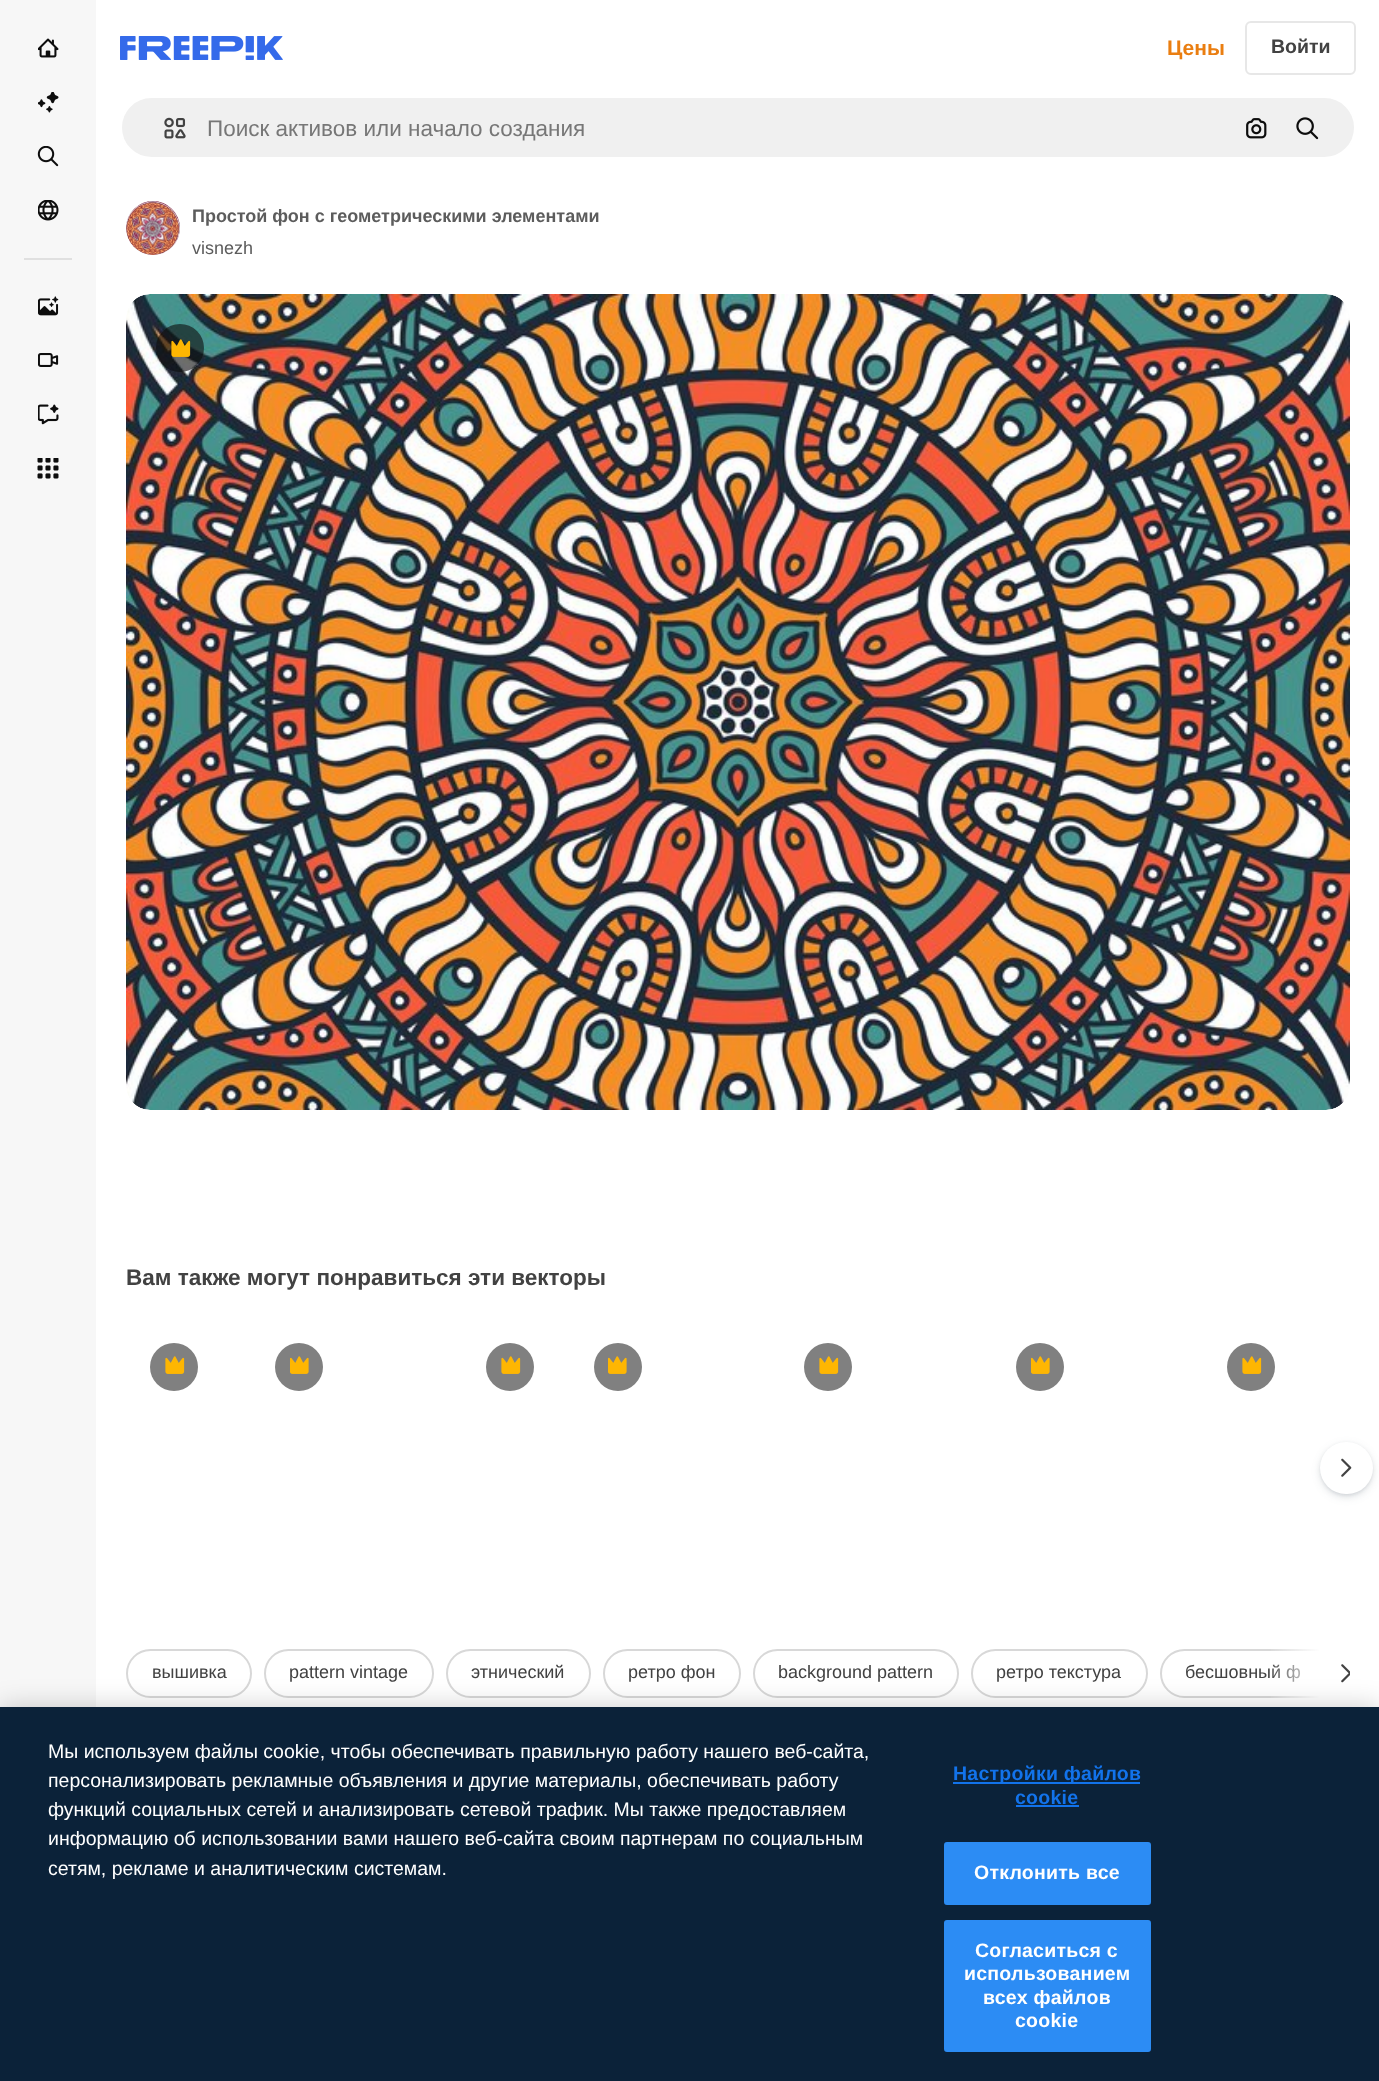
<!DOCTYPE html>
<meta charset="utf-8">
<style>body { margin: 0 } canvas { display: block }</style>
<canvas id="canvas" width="1379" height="2081"></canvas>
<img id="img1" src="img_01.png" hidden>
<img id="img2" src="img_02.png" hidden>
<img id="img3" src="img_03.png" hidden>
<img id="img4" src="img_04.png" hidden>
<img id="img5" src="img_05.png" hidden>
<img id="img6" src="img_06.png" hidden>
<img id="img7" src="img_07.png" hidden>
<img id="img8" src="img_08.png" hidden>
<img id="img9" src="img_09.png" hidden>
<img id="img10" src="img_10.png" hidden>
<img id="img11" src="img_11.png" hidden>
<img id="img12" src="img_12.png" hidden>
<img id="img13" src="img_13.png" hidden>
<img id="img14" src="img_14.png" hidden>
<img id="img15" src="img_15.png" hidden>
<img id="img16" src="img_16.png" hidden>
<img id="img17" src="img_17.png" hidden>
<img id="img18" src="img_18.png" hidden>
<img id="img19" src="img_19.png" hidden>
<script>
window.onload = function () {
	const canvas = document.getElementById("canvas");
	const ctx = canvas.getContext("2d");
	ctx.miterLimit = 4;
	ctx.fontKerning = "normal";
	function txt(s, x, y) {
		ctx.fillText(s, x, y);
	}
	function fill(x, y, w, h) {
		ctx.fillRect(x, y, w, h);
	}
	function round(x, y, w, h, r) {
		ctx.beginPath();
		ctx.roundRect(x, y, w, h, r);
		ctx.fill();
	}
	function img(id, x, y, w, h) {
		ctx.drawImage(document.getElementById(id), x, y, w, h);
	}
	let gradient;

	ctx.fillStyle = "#FFFFFF";
	fill(0, 0, 1379, 2081);
	ctx.fillStyle = "#F7F7F7";
	fill(0, 0, 96, 1707);
	img("img1", 38, 38, 21, 20);
	img("img2", 38, 92, 21, 21);
	img("img3", 37, 146, 22, 21);
	img("img4", 38, 200, 21, 21);
	ctx.fillStyle = "#E0E0E0";
	fill(24, 258, 48, 2);
	img("img5", 38, 296, 21, 20);
	img("img6", 38, 353, 21, 14);
	img("img7", 38, 404, 21, 21);
	img("img8", 37, 458, 22, 21);
	img("img9", 120, 36, 163, 24);
	ctx.beginPath();
	ctx.roundRect(1246, 22, 109, 52, 5);
	ctx.strokeStyle = "#E7E7E7";
	ctx.lineWidth = 2;
	ctx.stroke();
	ctx.fillStyle = "#F0F0F0";
	ctx.beginPath();
	ctx.roundRect(121, 97, 1234, 61, 30.5);
	ctx.fill();
	ctx.strokeStyle = "#FFFFFF";
	ctx.stroke();
	img("img10", 164, 117, 22, 22);
	img("img11", 1246, 118, 21, 21);
	img("img12", 1296, 117, 23, 23);
	img("img13", 126, 201, 54, 54);
	img("img14", 126, 294, 1224, 816);
	ctx.fillStyle = "rgba(13, 13, 13, 0.6)";
	ctx.beginPath();
	ctx.arc(180, 348, 24, 0, Math.PI * 2);
	ctx.fill();
	img("img15", 171, 339, 20, 18);
	ctx.fillStyle = "#808080";
	ctx.beginPath();
	ctx.arc(174, 1367, 24, 0, Math.PI * 2);
	ctx.fill();
	img("img16", 165, 1356, 20, 18);
	ctx.beginPath();
	ctx.arc(299, 1367, 24, 0, Math.PI * 2);
	ctx.fill();
	img("img17", 290, 1356, 19, 18);
	ctx.beginPath();
	ctx.arc(510, 1367, 24, 0, Math.PI * 2);
	ctx.fill();
	img("img16", 501, 1356, 20, 18);
	ctx.beginPath();
	ctx.arc(618, 1367, 24, 0, Math.PI * 2);
	ctx.fill();
	img("img17", 608, 1356, 19, 18);
	ctx.beginPath();
	ctx.arc(828, 1367, 24, 0, Math.PI * 2);
	ctx.fill();
	img("img16", 819, 1356, 20, 18);
	ctx.beginPath();
	ctx.arc(1040, 1367, 24, 0, Math.PI * 2);
	ctx.fill();
	img("img17", 1031, 1356, 19, 18);
	ctx.beginPath();
	ctx.arc(1251, 1367, 24, 0, Math.PI * 2);
	ctx.fill();
	img("img16", 1242, 1356, 20, 18);
	ctx.fillStyle = "rgba(55, 73, 87, 0.15)";
	ctx.filter = "blur(4px)";
	ctx.beginPath();
	ctx.roundRect(1320, 1445, 53, 52, 26);
	ctx.fill();
	ctx.filter = "none";
	ctx.fillStyle = "rgba(55, 73, 87, 0.1)";
	ctx.filter = "blur(1.5px)";
	ctx.beginPath();
	ctx.roundRect(1320, 1443, 53, 53, 26.5);
	ctx.fill();
	ctx.filter = "none";
	ctx.fillStyle = "#FFFFFF";
	round(1320, 1442, 53, 52, 26);
	img("img18", 1341, 1458, 11, 19);
	ctx.beginPath();
	ctx.roundRect(127, 1650, 124, 47, 23.5);
	ctx.strokeStyle = "#D8D8D8";
	ctx.stroke();
	ctx.beginPath();
	ctx.roundRect(265, 1650, 168, 47, 23.5);
	ctx.stroke();
	ctx.beginPath();
	ctx.roundRect(447, 1650, 143, 47, 23.5);
	ctx.stroke();
	ctx.beginPath();
	ctx.roundRect(604, 1650, 136, 47, 23.5);
	ctx.stroke();
	ctx.beginPath();
	ctx.roundRect(754, 1650, 204, 47, 23.5);
	ctx.stroke();
	ctx.beginPath();
	ctx.roundRect(972, 1650, 175, 47, 23.5);
	ctx.stroke();
	ctx.beginPath();
	ctx.roundRect(1161, 1650, 184, 47, 23.5);
	ctx.stroke();
	fill(1320, 1649, 26, 49);
	img("img19", 1341, 1664, 9, 19);
	ctx.font = "bold 21px Liberation Sans";
	ctx.fillStyle = "#EA7E11";
	txt("Цены", 1167, 55);
	ctx.font = "bold 19.5px Liberation Sans";
	ctx.fillStyle = "#424242";
	txt("Войти", 1271, 53);
	ctx.font = "22.5px Liberation Sans";
	ctx.fillStyle = "#777777";
	txt("Поиск активов или начало создания", 207, 136);
	ctx.font = "bold 18px Liberation Sans";
	ctx.fillStyle = "#5C5C5C";
	txt("Простой фон с геометрическими элементами", 192, 222);
	ctx.font = "18px Liberation Sans";
	txt("visnezh", 192, 254);
	ctx.font = "bold 22.5px Liberation Sans";
	ctx.fillStyle = "#424242";
	txt("Вам также могут понравиться эти векторы", 126, 1285);
	ctx.font = "18px Liberation Sans";
	txt("вышивка", 152, 1678);
	txt("pattern vintage", 289, 1678);
	txt("этнический", 471, 1678);
	txt("ретро фон", 628, 1678);
	txt("background pattern", 778, 1678);
	txt("ретро текстура", 996, 1678);
	txt("бесшовный ф", 1185, 1678);
	gradient = ctx.createLinearGradient(1320, 1673, 1268, 1673);
	gradient.addColorStop(0, "#FFFFFF");
	gradient.addColorStop(1, "rgba(255, 255, 255, 0)");
	ctx.fillStyle = gradient;
	fill(1271, 1649, 49, 49);
	ctx.fillStyle = "rgba(0, 0, 0, 0.2)";
	ctx.filter = "blur(13.5px)";
	ctx.beginPath();
	ctx.rect(0, 1707, 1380, 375);
	ctx.fill();
	ctx.filter = "none";
	ctx.fillStyle = "#0B2239";
	fill(0, 1707, 1379, 374);
	ctx.font = "19.5px Liberation Sans";
	ctx.fillStyle = "#FFFFFF";
	txt("Мы используем файлы cookie, чтобы обеспечивать правильную работу нашего веб-сайта,", 48, 1758);
	txt("персонализировать рекламные объявления и другие материалы, обеспечивать работу", 48, 1787);
	txt("функций социальных сетей и анализировать сетевой трафик. Мы также предоставляем", 48, 1816);
	txt("информацию об использовании вами нашего веб-сайта своим партнерам по социальным", 48, 1845);
	txt("сетям, рекламе и аналитическим системам.", 48, 1875);
	ctx.fillStyle = "#1273EB";
	fill(953, 1782, 187, 2);
	ctx.letterSpacing = "0.25px";
	ctx.font = "bold 19.5px Liberation Sans";
	txt("Настройки файлов", 953, 1780);
	txt("cookie", 1015, 1804);
	fill(1016, 1805, 63, 2);
	ctx.fillStyle = "#2C8CF4";
	ctx.beginPath();
	ctx.roundRect(945, 1843, 205, 61, 2);
	ctx.fill();
	ctx.strokeStyle = "#2C8CF4";
	ctx.stroke();
	ctx.fillStyle = "#FFFFFF";
	txt("Отклонить все", 974, 1879);
	ctx.fillStyle = "#2C8CF4";
	ctx.beginPath();
	ctx.roundRect(945, 1921, 205, 130, 2);
	ctx.fill();
	ctx.stroke();
	ctx.fillStyle = "#FFFFFF";
	txt("Согласиться с", 975, 1957);
	txt("использованием", 964, 1980);
	txt("всех файлов", 983, 2004);
	txt("cookie", 1015, 2027);
};
</script>
